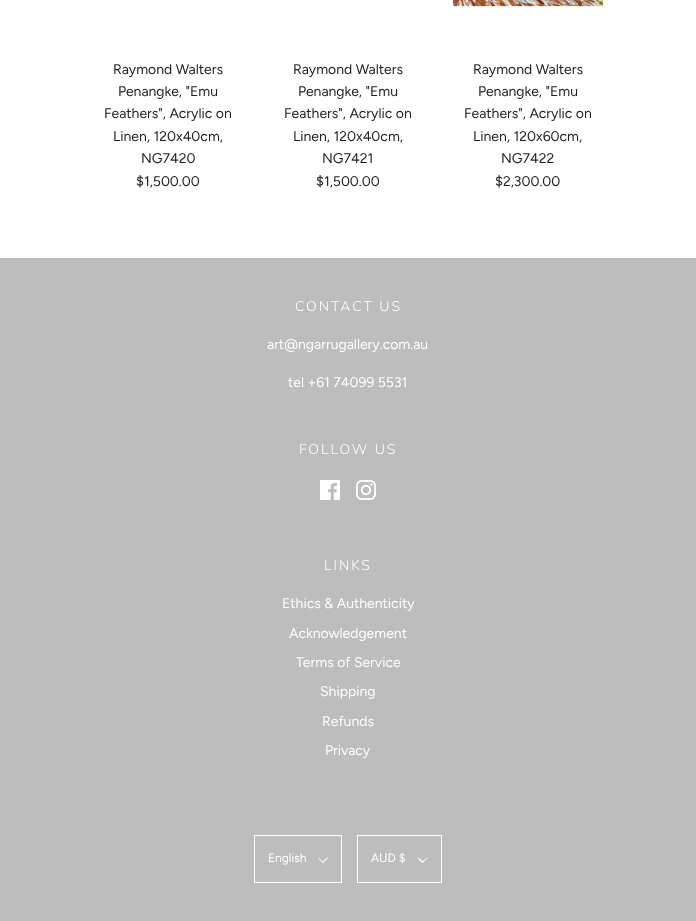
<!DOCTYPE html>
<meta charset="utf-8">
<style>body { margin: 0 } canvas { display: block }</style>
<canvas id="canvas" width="696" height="921"></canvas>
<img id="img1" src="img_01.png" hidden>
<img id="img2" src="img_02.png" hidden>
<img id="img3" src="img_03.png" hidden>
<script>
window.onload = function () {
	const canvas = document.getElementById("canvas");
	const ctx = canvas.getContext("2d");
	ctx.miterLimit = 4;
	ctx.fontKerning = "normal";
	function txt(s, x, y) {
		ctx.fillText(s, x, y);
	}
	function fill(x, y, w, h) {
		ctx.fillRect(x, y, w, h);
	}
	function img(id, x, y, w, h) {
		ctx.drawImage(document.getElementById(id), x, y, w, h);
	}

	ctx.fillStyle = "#FFFFFF";
	fill(0, 0, 696, 921);
	img("img1", 453, 0, 150, 7);
	ctx.fillStyle = "#BDBDBD";
	fill(0, 258, 696, 663);
	img("img2", 320, 480, 20, 20);
	img("img3", 356, 480, 20, 20);
	ctx.strokeStyle = "#FFFFFF";
	ctx.strokeRect(254.5, 835.5, 87, 47);
	ctx.fillStyle = "#FFFFFF";
	ctx.beginPath();
	ctx.moveTo(327, 857.5);
	ctx.lineTo(328, 858);
	ctx.lineTo(323, 863);
	ctx.lineTo(322.5, 862);
	ctx.closePath();
	ctx.fill();
	ctx.beginPath();
	ctx.moveTo(318.5, 857.5);
	ctx.lineTo(323.5, 862);
	ctx.lineTo(323, 863);
	ctx.lineTo(318, 858);
	ctx.closePath();
	ctx.fill();
	ctx.strokeRect(357.5, 835.5, 84, 47);
	ctx.beginPath();
	ctx.moveTo(427, 857.5);
	ctx.lineTo(427.5, 858);
	ctx.lineTo(422.5, 863);
	ctx.lineTo(422, 862);
	ctx.closePath();
	ctx.fill();
	ctx.beginPath();
	ctx.moveTo(418.5, 857.5);
	ctx.lineTo(423.5, 862);
	ctx.lineTo(422.5, 863);
	ctx.lineTo(417.5, 858);
	ctx.closePath();
	ctx.fill();
	ctx.font = "14px Figtree";
	ctx.fillStyle = "#222222";
	txt("Raymond Walters", 113, 74);
	txt("Penangke, \"Emu", 118, 96);
	txt("Feathers\", Acrylic on", 104, 118);
	txt("Linen, 120x40cm,", 113, 141);
	txt("NG7420", 141, 163);
	txt("$1,500.00", 136, 186);
	txt("Raymond Walters", 293, 74);
	txt("Penangke, \"Emu", 298, 96);
	txt("Feathers\", Acrylic on", 284, 118);
	txt("Linen, 120x40cm,", 293, 141);
	txt("NG7421", 322, 163);
	txt("$1,500.00", 316, 186);
	txt("Raymond Walters", 473, 74);
	txt("Penangke, \"Emu", 478, 96);
	txt("Feathers\", Acrylic on", 464, 118);
	txt("Linen, 120x60cm,", 473, 141);
	txt("NG7422", 501, 163);
	txt("$2,300.00", 495, 186);
	ctx.letterSpacing = "2px";
	ctx.font = "300 14px Nunito";
	ctx.fillStyle = "#FFFFFF";
	txt("CONTACT US", 295, 311);
	ctx.letterSpacing = "0px";
	ctx.font = "14px Figtree";
	txt("art@ngarrugallery.com.au", 267, 349);
	txt("tel +61 74099 5531", 288, 387);
	ctx.letterSpacing = "2px";
	ctx.font = "300 14px Nunito";
	txt("FOLLOW US", 299, 454);
	txt("LINKS", 324, 570);
	ctx.letterSpacing = "0px";
	ctx.font = "14px Figtree";
	txt("Ethics & Authenticity", 282, 608);
	txt("Acknowledgement", 289, 638);
	txt("Terms of Service", 296, 667);
	txt("Shipping", 320, 696);
	txt("Refunds", 322, 726);
	txt("Privacy", 325, 755);
	ctx.font = "12px Figtree";
	txt("English", 268, 862);
	txt("AUD $", 371, 862);
};
</script>
